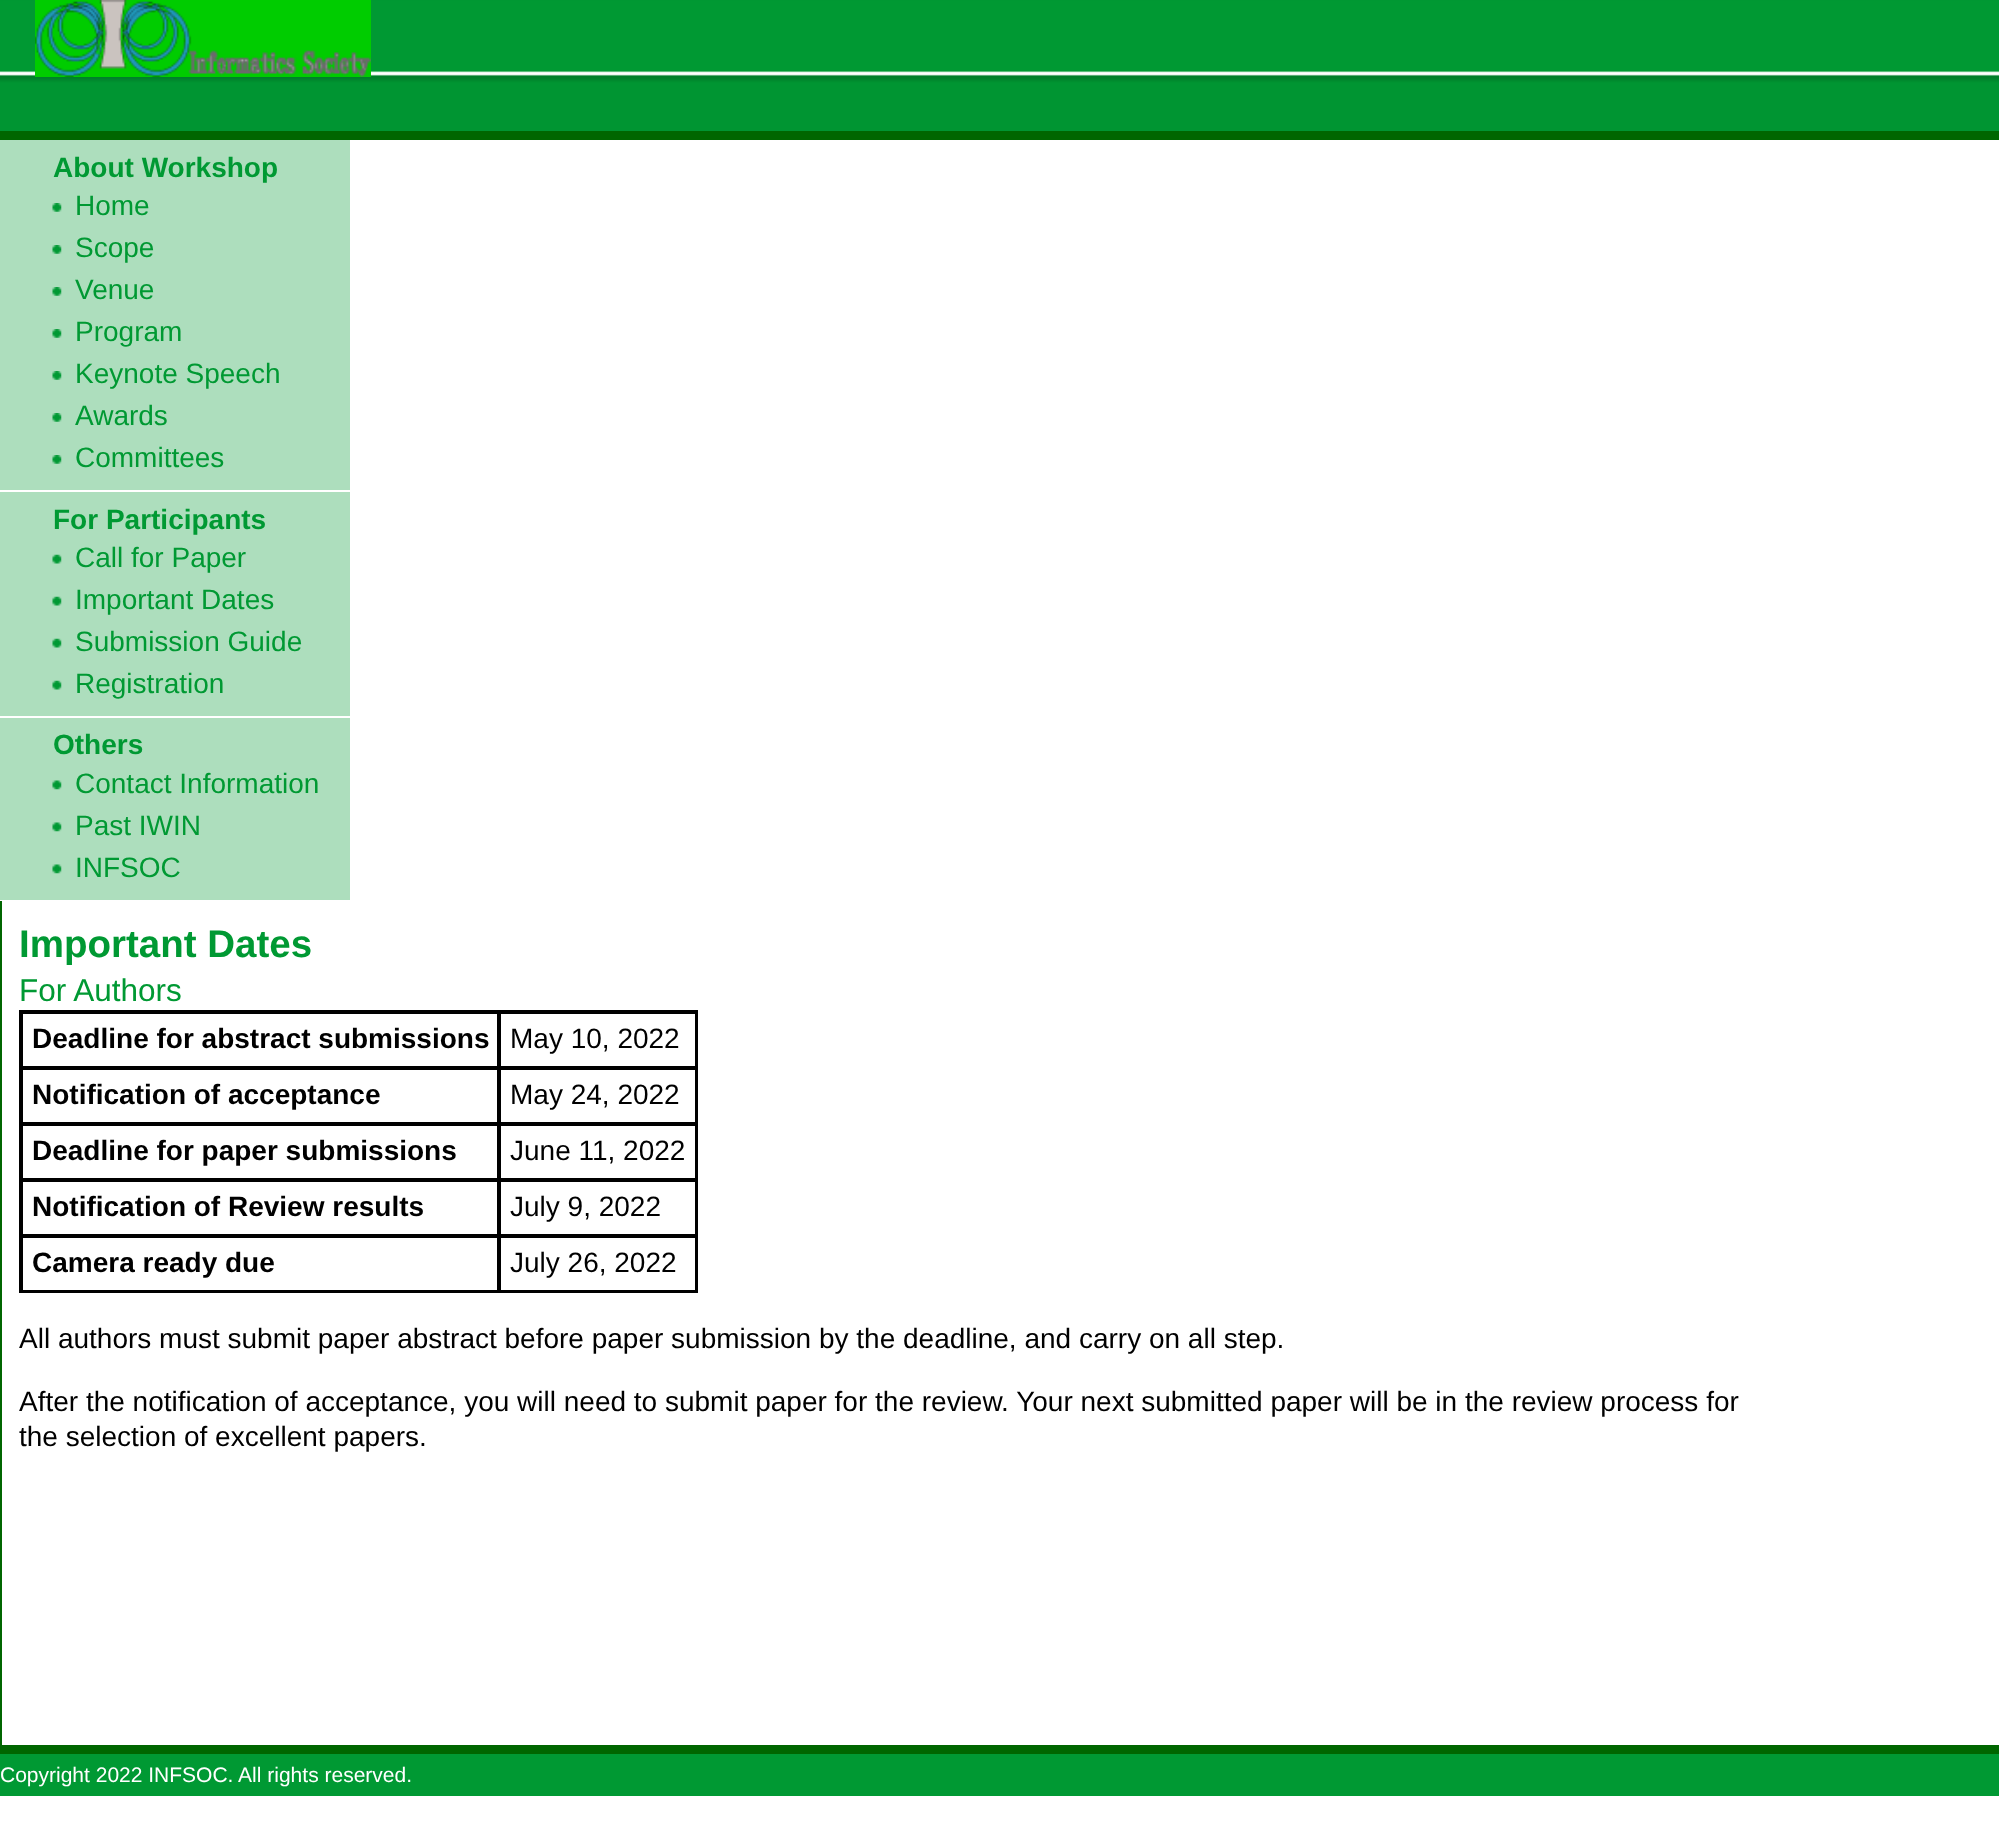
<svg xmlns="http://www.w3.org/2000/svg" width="1999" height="1837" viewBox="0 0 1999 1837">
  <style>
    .t1 { font: bold 28px Liberation Sans; fill: #093; }
    .t2 { font: 28px Liberation Sans; fill: #093; }
    .t3 { font: bold 38.5px Liberation Sans; fill: #093; }
    .t4 { font: 31.5px Liberation Sans; fill: #093; }
    .t5 { font: bold 28px Liberation Sans; fill: #000; }
    .t6 { font: 28px Liberation Sans; fill: #000; }
    .t7 { font: 21px Liberation Sans; fill: #fff; }
  </style>
  <rect width="100%" height="100%" fill="#fff"/>
  <image x="0" y="0" width="1999" height="131" href="images/1.png"/>
  <rect x="0" y="131" width="1999" height="9" fill="#060"/>
  <image x="35" y="0" width="336" height="77" href="images/2.png"/>
  <rect x="0" y="140" width="350" height="760" fill="#addebd"/>
  <rect x="0" y="490" width="350" height="2" fill="#fff"/>
  <text x="53" y="177" class="t1">About Workshop</text>
  <image x="52" y="203" width="10" height="9" href="images/3.png"/>
  <text x="75" y="215" class="t2">Home</text>
  <image x="52" y="245" width="10" height="9" href="images/3.png"/>
  <text x="75" y="257" class="t2">Scope</text>
  <image x="52" y="287" width="10" height="9" href="images/3.png"/>
  <text x="75" y="299" class="t2">Venue</text>
  <image x="52" y="329" width="10" height="9" href="images/3.png"/>
  <text x="75" y="341" class="t2">Program</text>
  <image x="52" y="371" width="10" height="9" href="images/3.png"/>
  <text x="75" y="383" class="t2">Keynote Speech</text>
  <image x="52" y="413" width="10" height="9" href="images/3.png"/>
  <text x="75" y="425" class="t2">Awards</text>
  <image x="52" y="455" width="10" height="9" href="images/3.png"/>
  <text x="75" y="467" class="t2">Committees</text>
  <rect x="0" y="716" width="350" height="2" fill="#fff"/>
  <text x="53" y="529" class="t1">For Participants</text>
  <image x="52" y="554" width="10" height="10" href="images/4.png"/>
  <text x="75" y="567" class="t2">Call for Paper</text>
  <image x="52" y="596" width="10" height="10" href="images/4.png"/>
  <text x="75" y="609" class="t2">Important Dates</text>
  <image x="52" y="638" width="10" height="10" href="images/4.png"/>
  <text x="75" y="651" class="t2">Submission Guide</text>
  <image x="52" y="680" width="10" height="10" href="images/4.png"/>
  <text x="75" y="693" class="t2">Registration</text>
  <text x="53" y="754" class="t1">Others</text>
  <image x="52" y="780" width="10" height="10" href="images/5.png"/>
  <text x="75" y="793" class="t2">Contact Information</text>
  <image x="52" y="822" width="10" height="10" href="images/5.png"/>
  <text x="75" y="835" class="t2">Past IWIN</text>
  <image x="52" y="864" width="10" height="10" href="images/5.png"/>
  <text x="75" y="877" class="t2">INFSOC</text>
  <rect x="0" y="901" width="2" height="844" fill="#060"/>
  <text x="19" y="957" class="t3">Important Dates</text>
  <text x="19" y="1001" class="t4">For Authors</text>
  <rect x="20" y="1011" width="677" height="281" fill="none" stroke="#000" stroke-width="2"/>
  <rect x="22" y="1013" width="476" height="54" fill="none" stroke="#000" stroke-width="2"/>
  <text x="32" y="1048" class="t5">Deadline for abstract submissions</text>
  <rect x="500" y="1013" width="196" height="54" fill="none" stroke="#000" stroke-width="2"/>
  <text x="510" y="1048" class="t6">May 10, 2022</text>
  <rect x="22" y="1069" width="476" height="54" fill="none" stroke="#000" stroke-width="2"/>
  <text x="32" y="1104" class="t5">Notification of acceptance</text>
  <rect x="500" y="1069" width="196" height="54" fill="none" stroke="#000" stroke-width="2"/>
  <text x="510" y="1104" class="t6">May 24, 2022</text>
  <rect x="22" y="1125" width="476" height="54" fill="none" stroke="#000" stroke-width="2"/>
  <text x="32" y="1160" class="t5">Deadline for paper submissions</text>
  <rect x="500" y="1125" width="196" height="54" fill="none" stroke="#000" stroke-width="2"/>
  <text x="510" y="1160" class="t6">June 11, 2022</text>
  <rect x="22" y="1181" width="476" height="54" fill="none" stroke="#000" stroke-width="2"/>
  <text x="32" y="1216" class="t5">Notification of Review results</text>
  <rect x="500" y="1181" width="196" height="54" fill="none" stroke="#000" stroke-width="2"/>
  <text x="510" y="1216" class="t6">July 9, 2022</text>
  <rect x="22" y="1237" width="476" height="54" fill="none" stroke="#000" stroke-width="2"/>
  <text x="32" y="1272" class="t5">Camera ready due</text>
  <rect x="500" y="1237" width="196" height="54" fill="none" stroke="#000" stroke-width="2"/>
  <text x="510" y="1272" class="t6">July 26, 2022</text>
  <text x="19" y="1348" class="t6">All authors must submit paper abstract before paper submission by the deadline, and carry on all step.</text>
  <text x="19" y="1411" class="t6">After the notification of acceptance, you will need to submit paper for the review. Your next submitted paper will be in the review process for</text>
  <text x="19" y="1446" class="t6">the selection of excellent papers.</text>
  <rect x="0" y="1754" width="1999" height="42" fill="#093"/>
  <rect x="0" y="1745" width="1999" height="9" fill="#060"/>
  <text x="0" y="1782" class="t7">Copyright 2022 INFSOC. All rights reserved.</text>
</svg>
